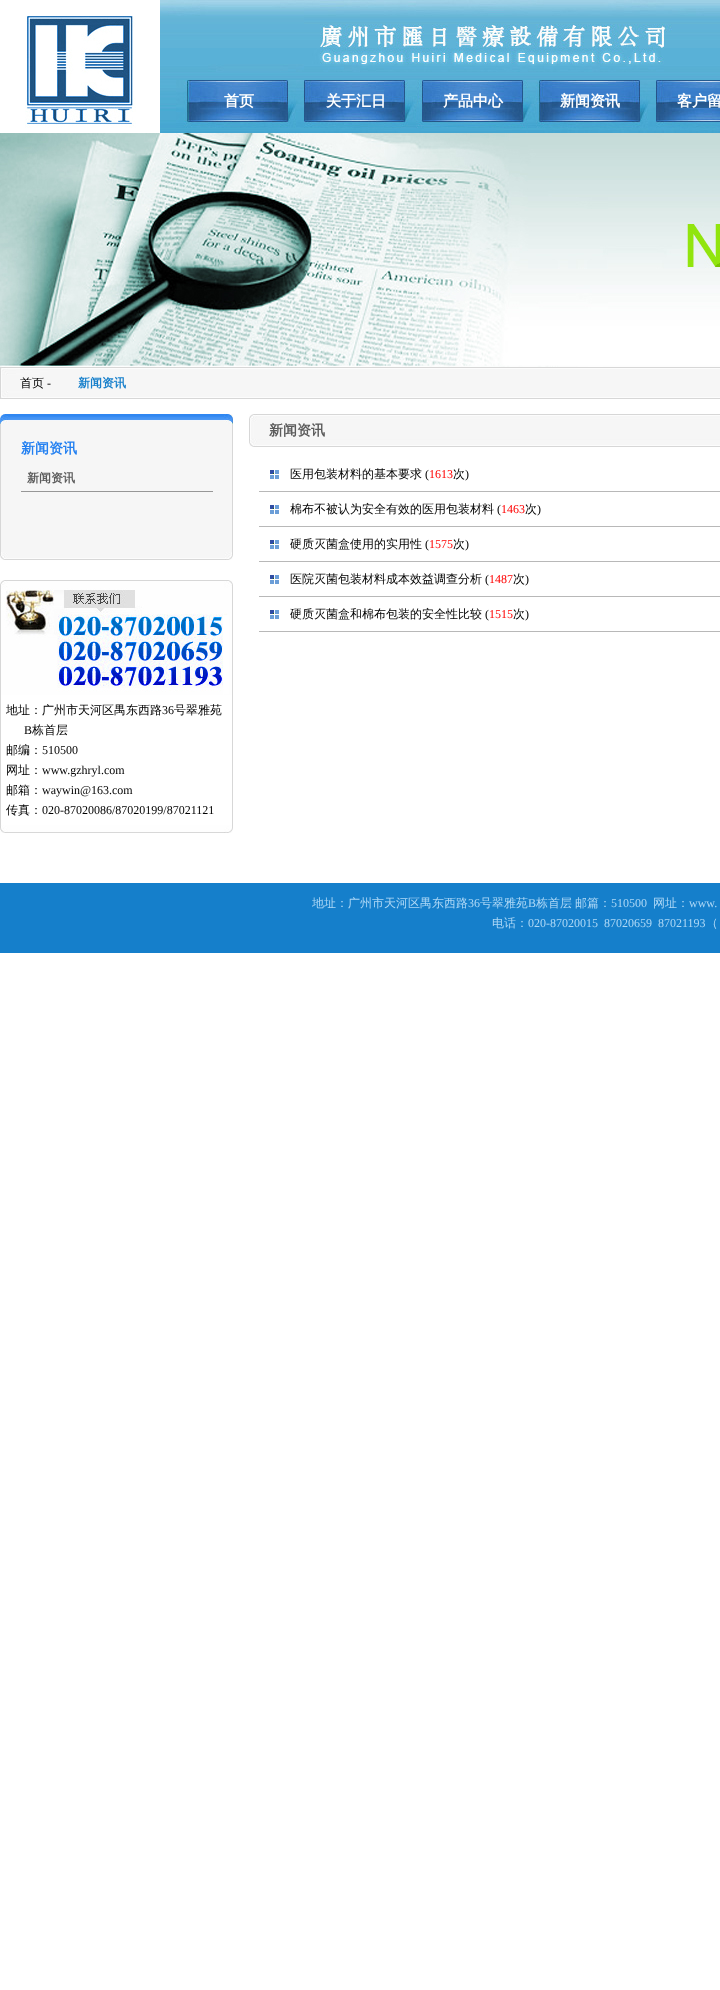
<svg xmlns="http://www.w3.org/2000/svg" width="720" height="1990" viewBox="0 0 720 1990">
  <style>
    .t1 { font: bold 15px WenQuanYi Zen Hei; fill: #fff; }
    .t2 { font: 500 12px WenQuanYi Zen Hei; fill: #000; }
    .t3 { font: 12px Liberation Serif; fill: #000; }
    .t4 { font: bold 12px WenQuanYi Zen Hei; fill: #167fcb; }
    .t5 { font: bold 14px WenQuanYi Zen Hei; fill: #2380f1; }
    .t6 { font: bold 12px WenQuanYi Zen Hei; fill: #5b5b5b; }
    .t7 { font: bold 14px WenQuanYi Zen Hei; fill: #5b5b5b; }
    .t8 { font: 12px Liberation Serif; fill: #f00; }
    .t9 { font: 500 12px WenQuanYi Zen Hei; fill: #aed8f6; }
    .t10 { font: 12px Liberation Serif; fill: #aed8f6; }
  </style>
  <rect width="100%" height="100%" fill="#fff"/>
  <image x="25" y="16" width="111" height="112" href="images/1.png"/>
  <image x="160" y="0" width="560" height="133" href="images/2.png"/>
  <text x="224" y="106" class="t1">首页</text>
  <text x="326" y="106" class="t1">关于汇日</text>
  <text x="443" y="106" class="t1">产品中心</text>
  <text x="560" y="106" class="t1">新闻资讯</text>
  <text x="677" y="106" class="t1">客户留</text>
  <image x="0" y="133" width="720" height="234" href="images/3.png"/>
  <image x="0" y="367" width="720" height="32" href="images/4.png"/>
  <text x="20" y="387" class="t2">首页</text>
  <text x="47" y="387" class="t3">-</text>
  <text x="78" y="387" class="t4">新闻资讯</text>
  <image x="0" y="414" width="233" height="10" href="images/5.png"/>
  <rect x="1" y="424" width="231" height="128" fill="#f6f6f6"/>
  <rect x="232" y="424" width="1" height="128" fill="#d7d7d7"/>
  <rect x="0" y="424" width="1" height="128" fill="#d7d7d7"/>
  <text x="21" y="453" class="t5">新闻资讯</text>
  <rect x="21" y="491" width="192" height="1" fill="#979797"/>
  <text x="27" y="482" class="t6">新闻资讯</text>
  <image x="0" y="552" width="233" height="8" href="images/6.png"/>
  <image x="0" y="580" width="233" height="115" href="images/7.png"/>
  <rect x="232" y="695" width="1" height="130" fill="#d7d7d7"/>
  <rect x="0" y="695" width="1" height="130" fill="#d7d7d7"/>
  <text x="6" y="714" class="t2">地址：广州市天河区禺东西路</text>
  <text x="162" y="714" class="t3">36</text>
  <text x="174" y="714" class="t2">号翠雅苑</text>
  <text x="24" y="734" class="t3">B</text>
  <text x="32" y="734" class="t2">栋首层</text>
  <text x="6" y="754" class="t2">邮编：</text>
  <text x="42" y="754" class="t3">510500</text>
  <text x="6" y="774" class="t2">网址：</text>
  <text x="42" y="774" class="t3">www.gzhryl.com</text>
  <text x="6" y="794" class="t2">邮箱：</text>
  <text x="42" y="794" class="t3">waywin@163.com</text>
  <text x="6" y="814" class="t2">传真：</text>
  <text x="42" y="814" class="t3">020-87020086/87020199/87021121</text>
  <image x="0" y="825" width="233" height="8" href="images/8.png"/>
  <image x="249" y="414" width="471" height="33" href="images/9.png"/>
  <text x="269" y="435" class="t7">新闻资讯</text>
  <rect x="259" y="491" width="461" height="1" fill="#b8b8b8"/>
  <image x="270" y="470" width="9" height="9" href="images/10.png"/>
  <text x="290" y="478" class="t2">医用包装材料的基本要求</text>
  <text x="425" y="478" class="t3">(</text>
  <text x="429" y="478" class="t8">1613</text>
  <text x="453" y="478" class="t2">次</text>
  <text x="465" y="478" class="t3">)</text>
  <rect x="259" y="526" width="461" height="1" fill="#b8b8b8"/>
  <image x="270" y="505" width="9" height="9" href="images/10.png"/>
  <text x="290" y="513" class="t2">棉布不被认为安全有效的医用包装材料</text>
  <text x="497" y="513" class="t3">(</text>
  <text x="501" y="513" class="t8">1463</text>
  <text x="525" y="513" class="t2">次</text>
  <text x="537" y="513" class="t3">)</text>
  <rect x="259" y="561" width="461" height="1" fill="#b8b8b8"/>
  <image x="270" y="540" width="9" height="9" href="images/10.png"/>
  <text x="290" y="548" class="t2">硬质灭菌盒使用的实用性</text>
  <text x="425" y="548" class="t3">(</text>
  <text x="429" y="548" class="t8">1575</text>
  <text x="453" y="548" class="t2">次</text>
  <text x="465" y="548" class="t3">)</text>
  <rect x="259" y="596" width="461" height="1" fill="#b8b8b8"/>
  <image x="270" y="575" width="9" height="9" href="images/10.png"/>
  <text x="290" y="583" class="t2">医院灭菌包装材料成本效益调查分析</text>
  <text x="485" y="583" class="t3">(</text>
  <text x="489" y="583" class="t8">1487</text>
  <text x="513" y="583" class="t2">次</text>
  <text x="525" y="583" class="t3">)</text>
  <rect x="259" y="631" width="461" height="1" fill="#b8b8b8"/>
  <image x="270" y="610" width="9" height="9" href="images/10.png"/>
  <text x="290" y="618" class="t2">硬质灭菌盒和棉布包装的安全性比较</text>
  <text x="485" y="618" class="t3">(</text>
  <text x="489" y="618" class="t8">1515</text>
  <text x="513" y="618" class="t2">次</text>
  <text x="525" y="618" class="t3">)</text>
  <rect x="0" y="883" width="720" height="70" fill="#157fcb"/>
  <text x="312" y="907" class="t9">地址：广州市天河区禺东西路</text>
  <text x="468" y="907" class="t10">36</text>
  <text x="480" y="907" class="t9">号翠雅苑</text>
  <text x="528" y="907" class="t10">B</text>
  <text x="536" y="907" class="t9">栋首层</text>
  <text x="575" y="907" class="t9">邮篇：</text>
  <text x="611" y="907" class="t10">510500</text>
  <text x="653" y="907" class="t9">网址：</text>
  <text x="689" y="907" class="t10">www.</text>
  <text x="492" y="927" class="t9">电话：</text>
  <text x="528" y="927" class="t10" xml:space="preserve">020-87020015  87020659  87021193</text>
  <text x="706" y="927" class="t9">（</text>
</svg>
